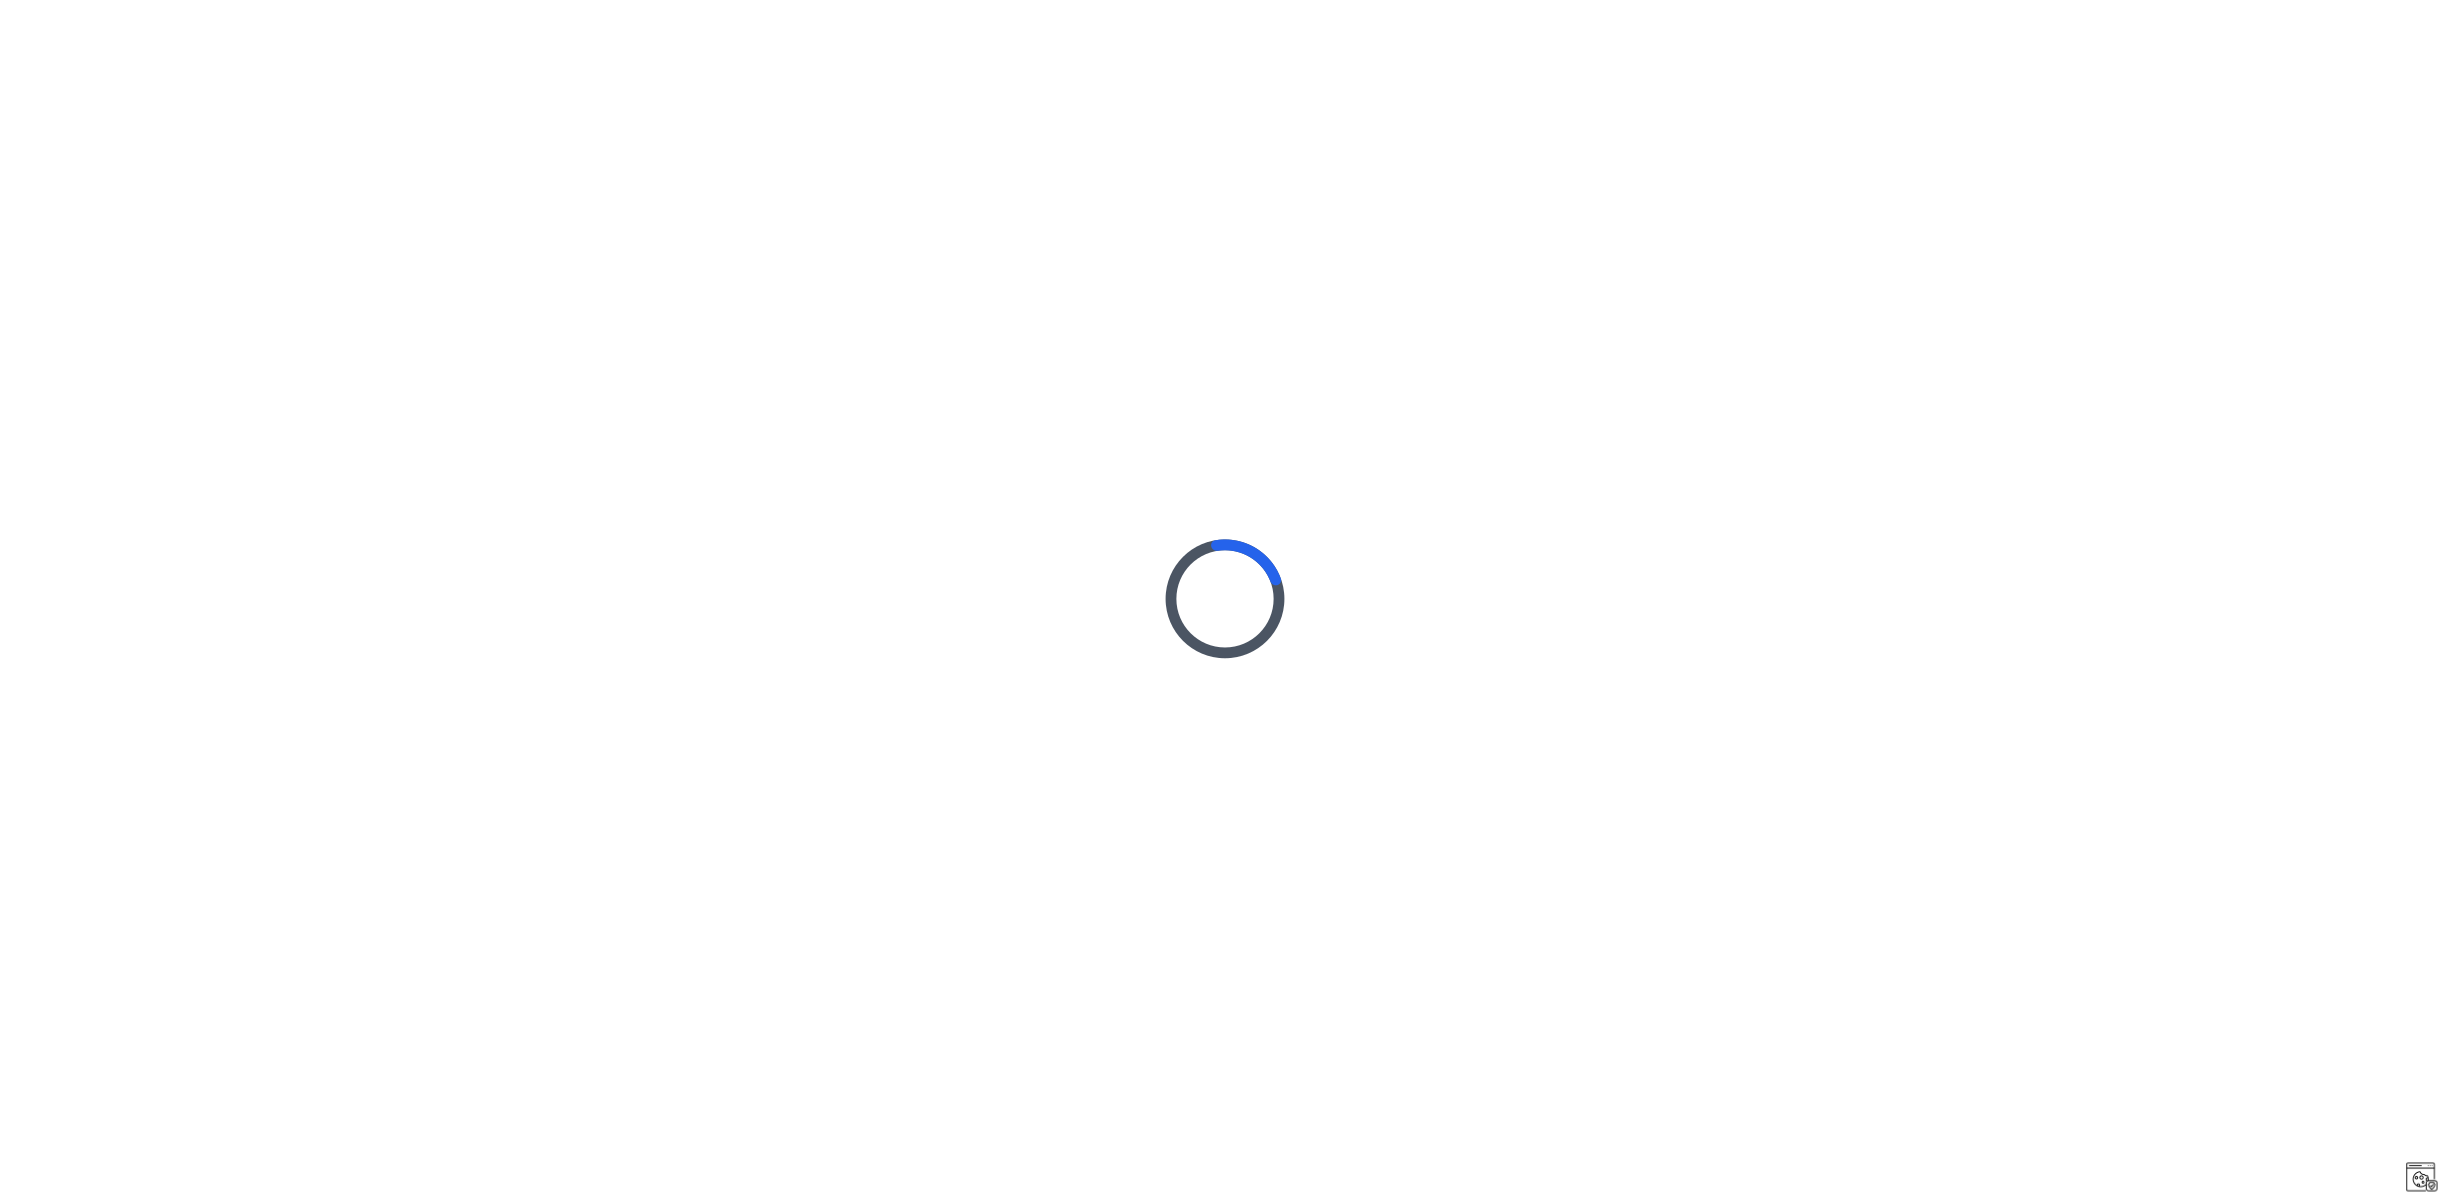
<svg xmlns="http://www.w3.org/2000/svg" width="2449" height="1197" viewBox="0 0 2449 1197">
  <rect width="100%" height="100%" fill="#fff"/>
  <image x="1165" y="539" width="120" height="120" href="images/1.png"/>
  <image x="2406" y="1162" width="32" height="30" href="images/2.png"/>
</svg>
